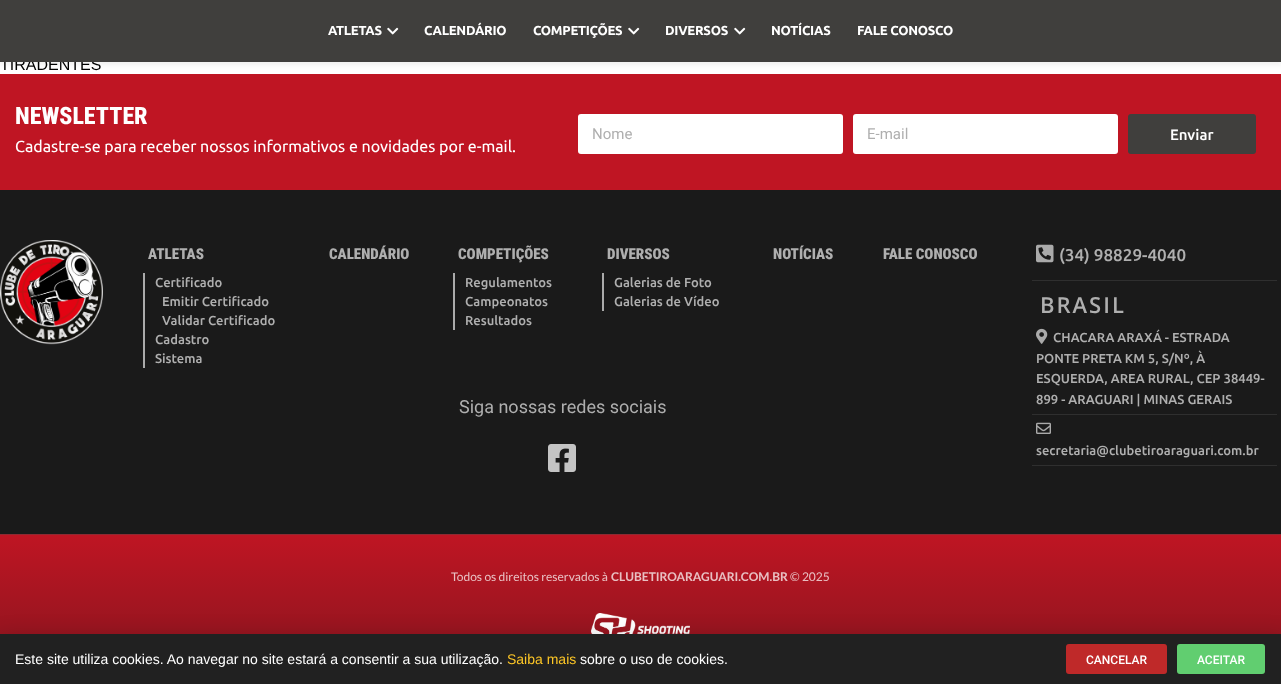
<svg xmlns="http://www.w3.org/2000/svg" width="1281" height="684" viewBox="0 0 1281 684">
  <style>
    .t1 { font: 16px Liberation Sans; fill: #000; }
    .t2 { font: bold 13px Ubuntu; letter-spacing: -0.25px; fill: #fff; }
    .t3 { font: 800 24px Roboto Condensed; fill: #fff; }
    .t4 { font: 16px Ubuntu; fill: #fff; }
    .t5 { font: 15px Roboto; fill: #afafaf; }
    .t6 { font: 500 15px Ubuntu; fill: #fff; }
    .t7 { font: 900 15px Roboto Condensed; fill: #afafaf; }
    .t8 { font: 500 13px Ubuntu; fill: #afafaf; }
    .t9 { font: 18px Roboto; fill: #afafaf; }
    .t10 { font: 500 17px Ubuntu; fill: #afafaf; }
    .t11 { font: 600 22px Open Sans; letter-spacing: 2px; fill: #afafaf; }
    .t12 { font: 12px Lato; fill: #e9c0c3; }
    .t13 { font: bold 12px Lato; fill: #e9c0c3; }
    .t14 { font: 14px Liberation Sans; fill: #fff; }
    .t15 { font: 14px Liberation Sans; fill: #fec726; }
    .t16 { font: 500 12px Roboto; fill: #fff; }
  </style>
  <defs>
    <linearGradient id="g1" gradientUnits="userSpaceOnUse" x1="641" y1="535" x2="641" y2="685"><stop offset="0" stop-color="#bf1523"/><stop offset="1" stop-color="#83151e"/></linearGradient>
  </defs>
  <rect width="100%" height="100%" fill="#fff"/>
  <rect x="-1" y="1" width="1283" height="64" fill="#0000000f" filter="blur(2.5px)"/>
  <text x="0" y="70" class="t1">TIRADENTES</text>
  <rect x="0" y="0" width="1281" height="62" fill="#403f3d"/>
  <text x="328" y="35" class="t2">ATLETAS</text>
  <image x="387" y="27" width="12" height="8" href="images/1.png"/>
  <text x="424" y="35" class="t2">CALENDÁRIO</text>
  <text x="533" y="35" class="t2">COMPETIÇÕES</text>
  <image x="628" y="27" width="12" height="8" href="images/1.png"/>
  <text x="665" y="35" class="t2">DIVERSOS</text>
  <image x="734" y="27" width="12" height="8" href="images/1.png"/>
  <text x="771" y="35" class="t2">NOTÍCIAS</text>
  <text x="857" y="35" class="t2">FALE CONOSCO</text>
  <rect x="0" y="74" width="1281" height="116" fill="#bf1523"/>
  <text x="15" y="124" class="t3">NEWSLETTER</text>
  <text x="15" y="152" class="t4">Cadastre-se para receber nossos informativos e novidades por e-mail.</text>
  <rect x="578" y="114" width="265" height="40" rx="3" fill="#fff"/>
  <text x="592" y="139" class="t5">Nome</text>
  <rect x="853" y="114" width="265" height="40" rx="3" fill="#fff"/>
  <text x="867" y="139" class="t5">E-mail</text>
  <rect x="1128" y="114" width="128" height="40" rx="3" fill="#403f3d"/>
  <text x="1170" y="140" class="t6">Enviar</text>
  <rect x="0" y="190" width="1281" height="344" fill="#1a1a1a"/>
  <image x="0" y="240" width="103" height="105" href="images/2.png"/>
  <text x="148" y="259" class="t7">ATLETAS</text>
  <rect x="143" y="273" width="2" height="95" fill="#aaa"/>
  <text x="155" y="287" class="t8">Certificado</text>
  <text x="162" y="306" class="t8">Emitir Certificado</text>
  <text x="162" y="325" class="t8">Validar Certificado</text>
  <text x="155" y="344" class="t8">Cadastro</text>
  <text x="155" y="363" class="t8">Sistema</text>
  <text x="329" y="259" class="t7">CALENDÁRIO</text>
  <text x="458" y="259" class="t7">COMPETIÇÕES</text>
  <rect x="453" y="273" width="2" height="57" fill="#aaa"/>
  <text x="465" y="287" class="t8">Regulamentos</text>
  <text x="465" y="306" class="t8">Campeonatos</text>
  <text x="465" y="325" class="t8">Resultados</text>
  <text x="607" y="259" class="t7">DIVERSOS</text>
  <rect x="602" y="273" width="2" height="38" fill="#aaa"/>
  <text x="614" y="287" class="t8">Galerias de Foto</text>
  <text x="614" y="306" class="t8">Galerias de Vídeo</text>
  <text x="773" y="259" class="t7">NOTÍCIAS</text>
  <text x="883" y="259" class="t7">FALE CONOSCO</text>
  <text x="459" y="413" class="t9">Siga nossas redes sociais</text>
  <image x="548" y="444" width="28" height="28" href="images/3.png"/>
  <rect x="1032" y="280" width="245" height="1" fill="#2f2f2f"/>
  <image x="1036" y="244" width="18" height="19" href="images/4.png"/>
  <text x="1059" y="261" class="t10">(34) 98829-4040</text>
  <text x="1040" y="313" class="t11">BRASIL</text>
  <rect x="1032" y="414" width="245" height="1" fill="#2f2f2f"/>
  <image x="1036" y="328" width="12" height="16" href="images/5.png"/>
  <text x="1053" y="342" class="t8">CHACARA ARAXÁ - ESTRADA</text>
  <text x="1036" y="363" class="t8">PONTE PRETA KM 5, S/Nº, À</text>
  <text x="1036" y="383" class="t8">ESQUERDA, AREA RURAL, CEP 38449-</text>
  <text x="1036" y="404" class="t8">899 - ARAGUARI | MINAS GERAIS</text>
  <rect x="1032" y="465" width="245" height="1" fill="#2f2f2f"/>
  <image x="1036" y="422" width="15" height="12" href="images/6.png"/>
  <text x="1036" y="455" class="t8">secretaria@clubetiroaraguari.com.br</text>
  <rect x="0" y="535" width="1281" height="99" fill="url(#g1)"/>
  <rect x="0" y="534" width="1281" height="1" fill="#8e2a32"/>
  <text x="451" y="581" class="t12">Todos os direitos reservados à</text>
  <text x="611" y="581" class="t13">CLUBETIROARAGUARI.COM.BR</text>
  <text x="790" y="581" class="t12">© 2025</text>
  <image x="591" y="613" width="99" height="21" href="images/7.png"/>
  <rect x="-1" y="639" width="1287" height="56" fill="#00000033" filter="blur(11.5px)"/>
  <rect x="0" y="634" width="1281" height="50" fill="#212121"/>
  <text x="15" y="664" class="t14">Este site utiliza cookies. Ao navegar no site estará a consentir a sua utilização.</text>
  <text x="507" y="664" class="t15">Saiba mais</text>
  <text x="580" y="664" class="t14">sobre o uso de cookies.</text>
  <rect x="1066" y="644" width="101" height="30" rx="3" fill="#bf2929"/>
  <text x="1086" y="664" class="t16">CANCELAR</text>
  <rect x="1177" y="644" width="88" height="30" rx="3" fill="#61ce70"/>
  <text x="1197" y="664" class="t16">ACEITAR</text>
</svg>
